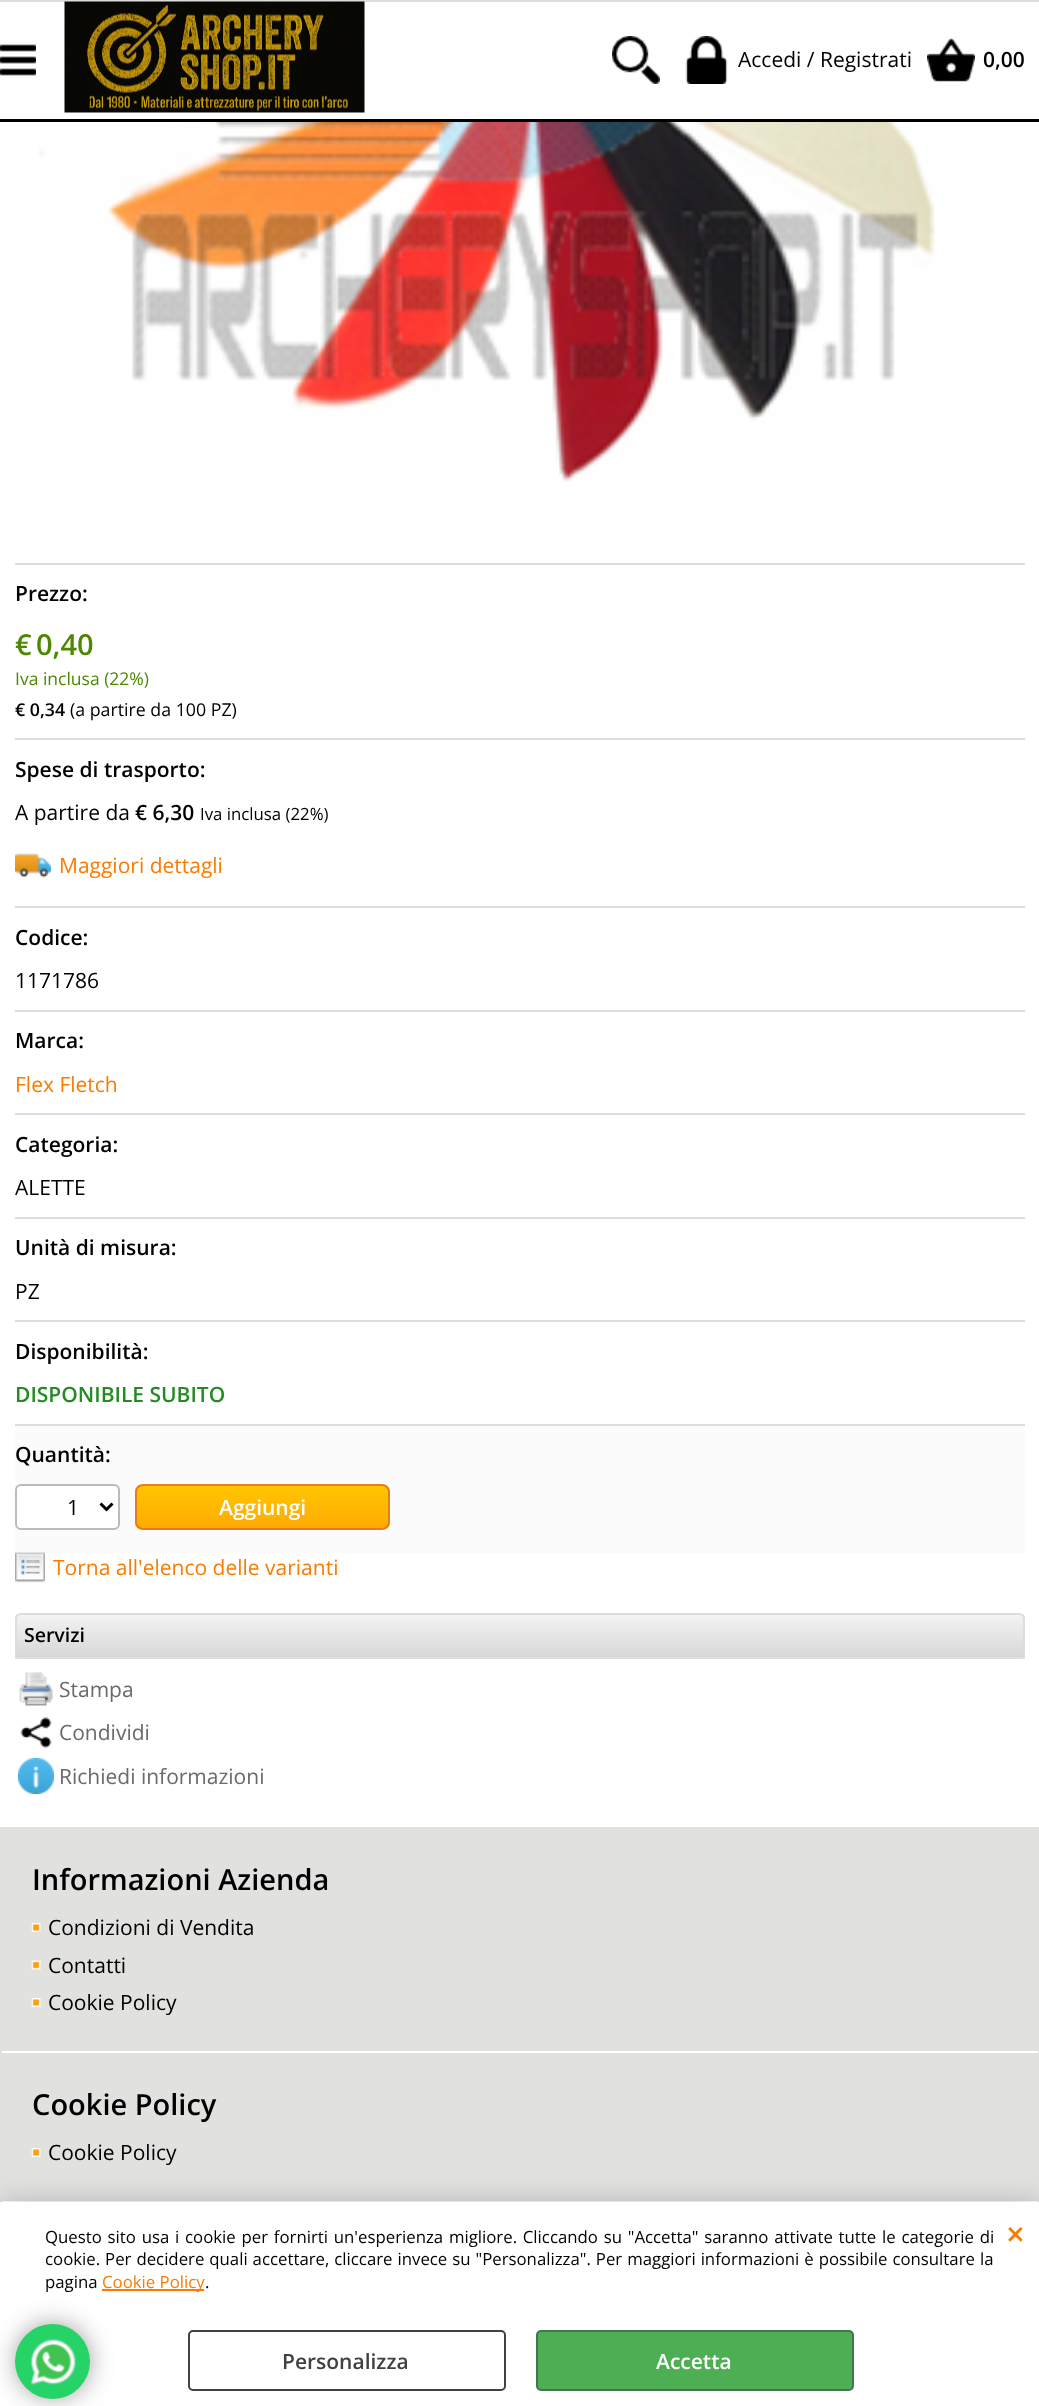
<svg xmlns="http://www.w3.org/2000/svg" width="1039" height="2406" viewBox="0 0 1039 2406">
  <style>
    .t1 { font: 21px Open Sans; fill: #000; }
    .t2 { font: 600 21px Open Sans; fill: #000; }
    .t3 { font: 600 29px Open Sans; fill: #4d8800; }
    .t4 { font: 17.5px Open Sans; fill: #4d8800; }
    .t5 { font: 600 17.75px Open Sans; fill: #000; }
    .t6 { font: 17.75px Open Sans; fill: #000; }
    .t7 { font: 16.8px Open Sans; fill: #000; }
    .t8 { font: 21px Open Sans; fill: #f97c00; }
    .t9 { font: 600 21px Open Sans; fill: #228b22; }
    .t10 { font: 600 21px Open Sans; fill: #fff; }
    .t11 { font: 600 19.5px Open Sans; fill: #000; }
    .t12 { font: 21px Open Sans; fill: #6b6969; }
    .t13 { font: 600 29px Open Sans; fill: #000; }
    .t14 { font: 16.8px Open Sans; fill: #f97c00; }
    .t15 { font: 600 33px Open Sans; fill: #f97c00; }
    .t16 { font: 600 21px Open Sans; fill: #424141; }
  </style>
  <defs>
    <clipPath id="clip1"><rect x="135" y="1484" width="255" height="46" rx="8"/></clipPath>
    <linearGradient id="g1" gradientUnits="userSpaceOnUse" x1="263" y1="1485" x2="263" y2="1529"><stop offset="0" stop-color="#ffc602"/><stop offset="1" stop-color="#ffaa02"/></linearGradient>
    <clipPath id="clip2"><path d="M21 1613H1019C1022.5 1613 1025 1615.5 1025 1619V1659H15V1619C15 1615.5 17.5 1613 21 1613Z"/></clipPath>
    <linearGradient id="g2" gradientUnits="userSpaceOnUse" x1="520" y1="1614" x2="520" y2="1658"><stop offset="0" stop-color="#f3f3f3"/><stop offset="1" stop-color="#d7d7d7"/></linearGradient>
  </defs>
  <rect width="100%" height="100%" fill="#fff"/>
  <rect x="0" y="0" width="1039" height="2" fill="#ddd"/>
  <rect x="0" y="119" width="1039" height="3" fill="#000"/>
  <image x="0" y="44" width="36" height="32" href="images/1.png"/>
  <image x="64" y="1" width="301" height="112" href="images/2.png"/>
  <image x="612" y="36" width="48" height="48" href="images/3.png"/>
  <image x="685" y="36" width="43" height="48" href="images/4.png"/>
  <text x="738" y="67" class="t1">Accedi / Registrati</text>
  <image x="927" y="38" width="48" height="44" href="images/5.png"/>
  <text x="983" y="67" class="t2">0,00</text>
  <image x="38" y="122" width="934" height="360" href="images/6.png"/>
  <rect x="15" y="563" width="1010" height="2" fill="#ddd"/>
  <text x="15" y="601" class="t2">Prezzo:</text>
  <text x="15" y="655" class="t3">€</text>
  <text x="36" y="655" class="t3">0,40</text>
  <text x="15" y="685" class="t4">Iva inclusa (22%)</text>
  <text x="15" y="716" class="t5">€ 0,34</text>
  <text x="70" y="716" class="t6">(a partire da 100 PZ)</text>
  <rect x="15" y="738" width="1010" height="2" fill="#ddd"/>
  <text x="15" y="777" class="t2">Spese di trasporto:</text>
  <text x="15" y="820" class="t1">A partire da</text>
  <text x="135" y="820" class="t2">€ 6,30</text>
  <text x="200" y="820" class="t7">Iva inclusa (22%)</text>
  <image x="15" y="853" width="36" height="25" href="images/7.png"/>
  <text x="59" y="873" class="t8">Maggiori dettagli</text>
  <rect x="15" y="906" width="1010" height="2" fill="#ddd"/>
  <text x="15" y="945" class="t2">Codice:</text>
  <text x="15" y="988" class="t1">1171786</text>
  <rect x="15" y="1010" width="1010" height="2" fill="#ddd"/>
  <text x="15" y="1048" class="t2">Marca:</text>
  <text x="15" y="1092" class="t8">Flex Fletch</text>
  <rect x="15" y="1113" width="1010" height="2" fill="#ddd"/>
  <text x="15" y="1152" class="t2">Categoria:</text>
  <text x="15" y="1195" class="t1">ALETTE</text>
  <rect x="15" y="1217" width="1010" height="2" fill="#ddd"/>
  <text x="15" y="1255" class="t2">Unità di misura:</text>
  <text x="15" y="1299" class="t1">PZ</text>
  <rect x="15" y="1320" width="1010" height="2" fill="#ddd"/>
  <text x="15" y="1359" class="t2">Disponibilità:</text>
  <text x="15" y="1402" class="t9">DISPONIBILE SUBITO</text>
  <rect x="15" y="1426" width="1010" height="127" fill="#fbfbfb"/>
  <rect x="15" y="1424" width="1010" height="2" fill="#ddd"/>
  <text x="15" y="1462" class="t2">Quantità:</text>
  <rect x="16" y="1485" width="103" height="44" rx="5" fill="#fff" stroke="#bbb" stroke-width="2"/>
  <path d="M100.5 1503.5L106.5 1509.5L112.5 1503.5" fill="none" stroke="#000" stroke-width="3"/>
  <text x="67" y="1515" class="t1">1</text>
  <g clip-path="url(#clip1)">
    <rect x="135" y="1485" width="255" height="44" fill="url(#g1)"/>
  </g>
  <rect x="136" y="1485" width="253" height="44" rx="7" fill="none" stroke="#eb7c19" stroke-width="2"/>
  <text x="219" y="1515" class="t10">Aggiungi</text>
  <image x="15" y="1552" width="30" height="31" href="images/8.png"/>
  <text x="53" y="1575" class="t8">Torna all'elenco delle varianti</text>
  <g clip-path="url(#clip2)">
    <rect x="15" y="1614" width="1010" height="43" fill="url(#g2)"/>
  </g>
  <path d="M21 1614H1019C1022 1614 1024 1616 1024 1619V1658H16V1619C16 1616 18 1614 21 1614Z" fill="none" stroke="#ddd" stroke-width="2"/>
  <text x="24" y="1642" class="t11">Servizi</text>
  <image x="19" y="1672" width="34" height="34" href="images/9.png"/>
  <text x="59" y="1697" class="t12">Stampa</text>
  <image x="20" y="1717" width="32" height="31" href="images/10.png"/>
  <text x="59" y="1740" class="t12">Condividi</text>
  <image x="18" y="1758" width="36" height="36" href="images/11.png"/>
  <text x="59" y="1784" class="t12">Richiedi informazioni</text>
  <rect x="0" y="1827" width="1039" height="375" fill="#e1e1e0"/>
  <rect x="2" y="2051" width="1036" height="2" fill="#fff"/>
  <text x="32" y="1890" class="t13">Informazioni Azienda</text>
  <image x="31" y="1923" width="10" height="9" href="images/12.png"/>
  <text x="48" y="1935" class="t1">Condizioni di Vendita</text>
  <image x="31" y="1960" width="10" height="10" href="images/13.png"/>
  <text x="48" y="1973" class="t1">Contatti</text>
  <image x="31" y="1998" width="10" height="9" href="images/12.png"/>
  <text x="48" y="2010" class="t1">Cookie Policy</text>
  <rect x="2" y="2201" width="1036" height="1" fill="#fff"/>
  <text x="32" y="2115" class="t13">Cookie Policy</text>
  <image x="31" y="2148" width="10" height="9" href="images/12.png"/>
  <text x="48" y="2160" class="t1">Cookie Policy</text>
  <rect x="0" y="2202" width="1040" height="204" fill="#00000033" filter="blur(13.5px)"/>
  <rect x="0" y="2202" width="1039" height="204" fill="#fff"/>
  <text x="45" y="2243" word-spacing="1.4" class="t7">Questo sito usa i cookie per fornirti un'esperienza migliore. Cliccando su "Accetta" saranno attivate tutte le categorie di</text>
  <text x="45" y="2265" word-spacing="0.6" class="t7">cookie. Per decidere quali accettare, cliccare invece su "Personalizza". Per maggiori informazioni è possibile consultare la</text>
  <text x="45" y="2288" class="t7">pagina</text>
  <rect x="102" y="2289" width="102" height="2" fill="#f97c00"/>
  <text x="102" y="2288" class="t14">Cookie Policy</text>
  <text x="205" y="2288" class="t7">.</text>
  <text x="1006" y="2246" class="t15">×</text>
  <rect x="189" y="2331" width="316" height="59" rx="4" fill="none" stroke="#424141" stroke-width="2"/>
  <text x="282" y="2369" class="t16">Personalizza</text>
  <rect x="537" y="2331" width="316" height="59" rx="4" fill="#4eae54" stroke="#3f7755" stroke-width="2"/>
  <text x="656" y="2369" class="t10">Accetta</text>
  <rect x="23" y="2331" width="60" height="60" rx="30" fill="#000000b3" filter="blur(15px)"/>
  <circle cx="52.5" cy="2361.5" r="37.5" fill="#25d366"/>
  <image x="30" y="2339" width="46" height="47" href="images/14.png"/>
</svg>
